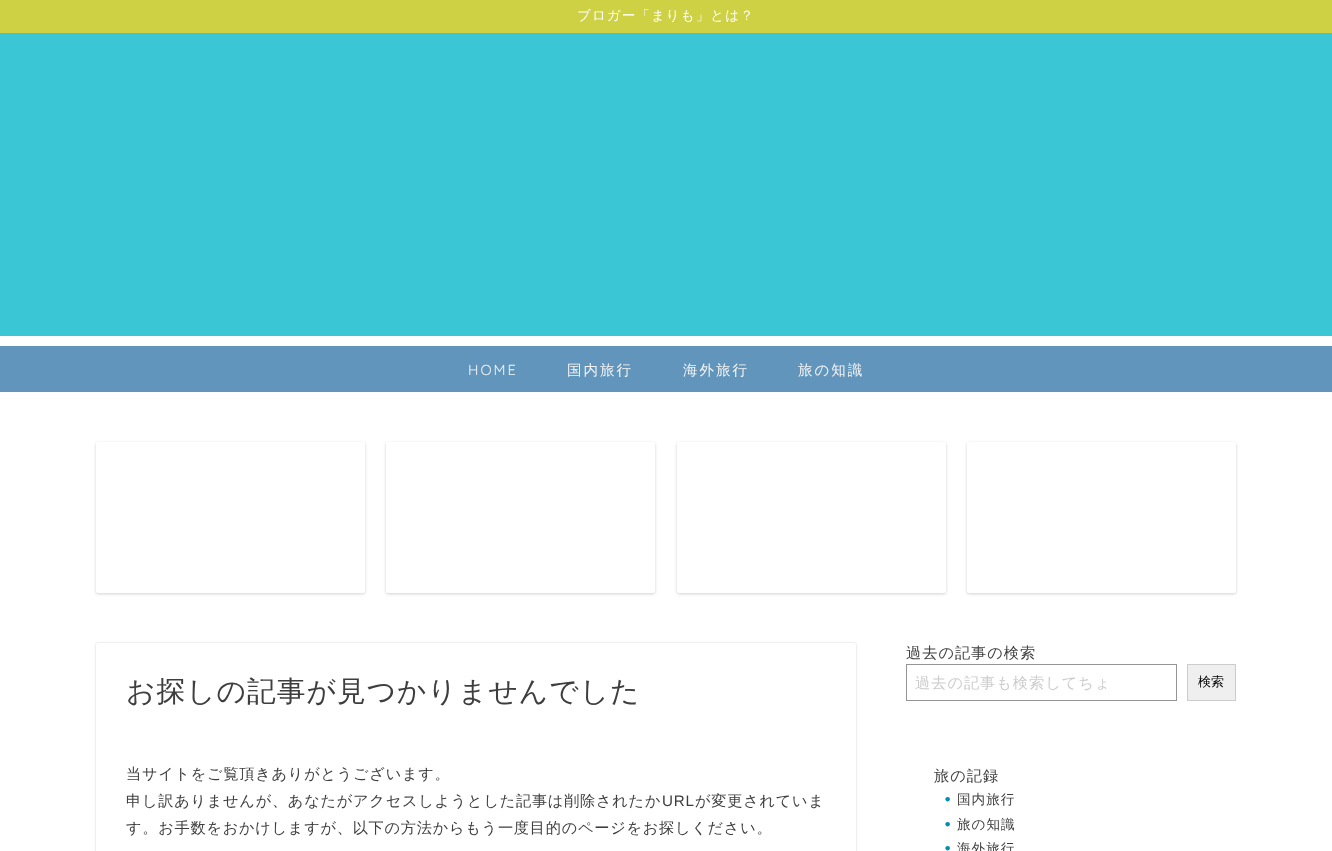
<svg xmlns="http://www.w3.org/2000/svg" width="1332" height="851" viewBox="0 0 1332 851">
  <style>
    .t1 { font: 500 13.6px WenQuanYi Zen Hei; letter-spacing: 1px; fill: #fff; }
    .t2 { font: 300 14.5px Quicksand; letter-spacing: 2px; fill: #f4f4f4; }
    .t3 { font: 500 14.5px WenQuanYi Zen Hei; letter-spacing: 2px; fill: #f4f4f4; }
    .t4 { font: 500 28.75px WenQuanYi Zen Hei; letter-spacing: 1px; fill: #3e3e3e; }
    .t5 { font: 500 15.2px WenQuanYi Zen Hei; letter-spacing: 0.75px; fill: #3e3e3e; }
    .t6 { font: 15.2px Liberation Sans; letter-spacing: 0.75px; fill: #3e3e3e; }
    .t7 { font: 500 15.2px WenQuanYi Zen Hei; letter-spacing: 1px; fill: #3e3e3e; }
    .t8 { font: 500 15.2px WenQuanYi Zen Hei; letter-spacing: 1px; fill: #ccc; }
    .t9 { font: 500 13px WenQuanYi Zen Hei; fill: #000; }
    .t10 { font: bold 24px WenQuanYi Zen Hei; letter-spacing: 1px; fill: #0090ad; }
    .t11 { font: 500 13.6px WenQuanYi Zen Hei; letter-spacing: 1px; fill: #3e3e3e; }
  </style>
  <rect width="100%" height="100%" fill="#fff"/>
  <rect x="0" y="0" width="1332" height="33" fill="#ced143"/>
  <text x="577" y="20" class="t1">ブロガー「まりも」とは？</text>
  <rect x="0" y="33" width="1332" height="303" fill="#3bc6d6"/>
  <rect x="0" y="346" width="1332" height="46" fill="#6295bc"/>
  <text x="468" y="375" class="t2">HOME</text>
  <text x="567" y="375" class="t3">国内旅行</text>
  <text x="683" y="375" class="t3">海外旅行</text>
  <text x="798" y="375" class="t3">旅の知識</text>
  <rect x="96" y="443" width="269" height="151" rx="2" fill="#0000002e" filter="blur(1.5px)"/>
  <rect x="96" y="442" width="269" height="151" rx="2" fill="#fff"/>
  <rect x="386" y="443" width="269" height="151" rx="2" fill="#0000002e" filter="blur(1.5px)"/>
  <rect x="386" y="442" width="269" height="151" rx="2" fill="#fff"/>
  <rect x="677" y="443" width="269" height="151" rx="2" fill="#0000002e" filter="blur(1.5px)"/>
  <rect x="677" y="442" width="269" height="151" rx="2" fill="#fff"/>
  <rect x="967" y="443" width="269" height="151" rx="2" fill="#0000002e" filter="blur(1.5px)"/>
  <rect x="967" y="442" width="269" height="151" rx="2" fill="#fff"/>
  <rect x="96" y="643" width="760" height="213" rx="2" fill="#0000002e" filter="blur(1px)"/>
  <rect x="96" y="643" width="760" height="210" rx="2" fill="#fff"/>
  <text x="126" y="701" class="t4">お探しの記事が見つかりませんでした</text>
  <text x="126" y="779" class="t5">当サイトをご覧頂きありがとうございます。</text>
  <text x="126" y="806" class="t5">申し訳ありませんが、あなたがアクセスしようとした記事は削除されたか</text>
  <text x="662" y="806" class="t6">URL</text>
  <text x="695" y="806" class="t5">が変更されていま</text>
  <text x="126" y="833" class="t5">す。お手数をおかけしますが、以下の方法からもう一度目的のページをお探しください。</text>
  <text x="906" y="658" class="t7">過去の記事の検索</text>
  <rect x="906.5" y="664.5" width="270" height="36" fill="none" stroke="#949494"/>
  <text x="915" y="688" class="t8">過去の記事も検索してちょ</text>
  <rect x="1187.5" y="664.5" width="48" height="36" fill="#efefef" stroke="#ccc"/>
  <text x="1198" y="686" class="t9">検索</text>
  <text x="934" y="781" class="t7">旅の記録</text>
  <text x="935" y="808" class="t10">・</text>
  <text x="957" y="804" class="t11">国内旅行</text>
  <text x="935" y="833" class="t10">・</text>
  <text x="957" y="829" class="t11">旅の知識</text>
  <text x="935" y="857" class="t10">・</text>
  <text x="957" y="853" class="t11">海外旅行</text>
</svg>
